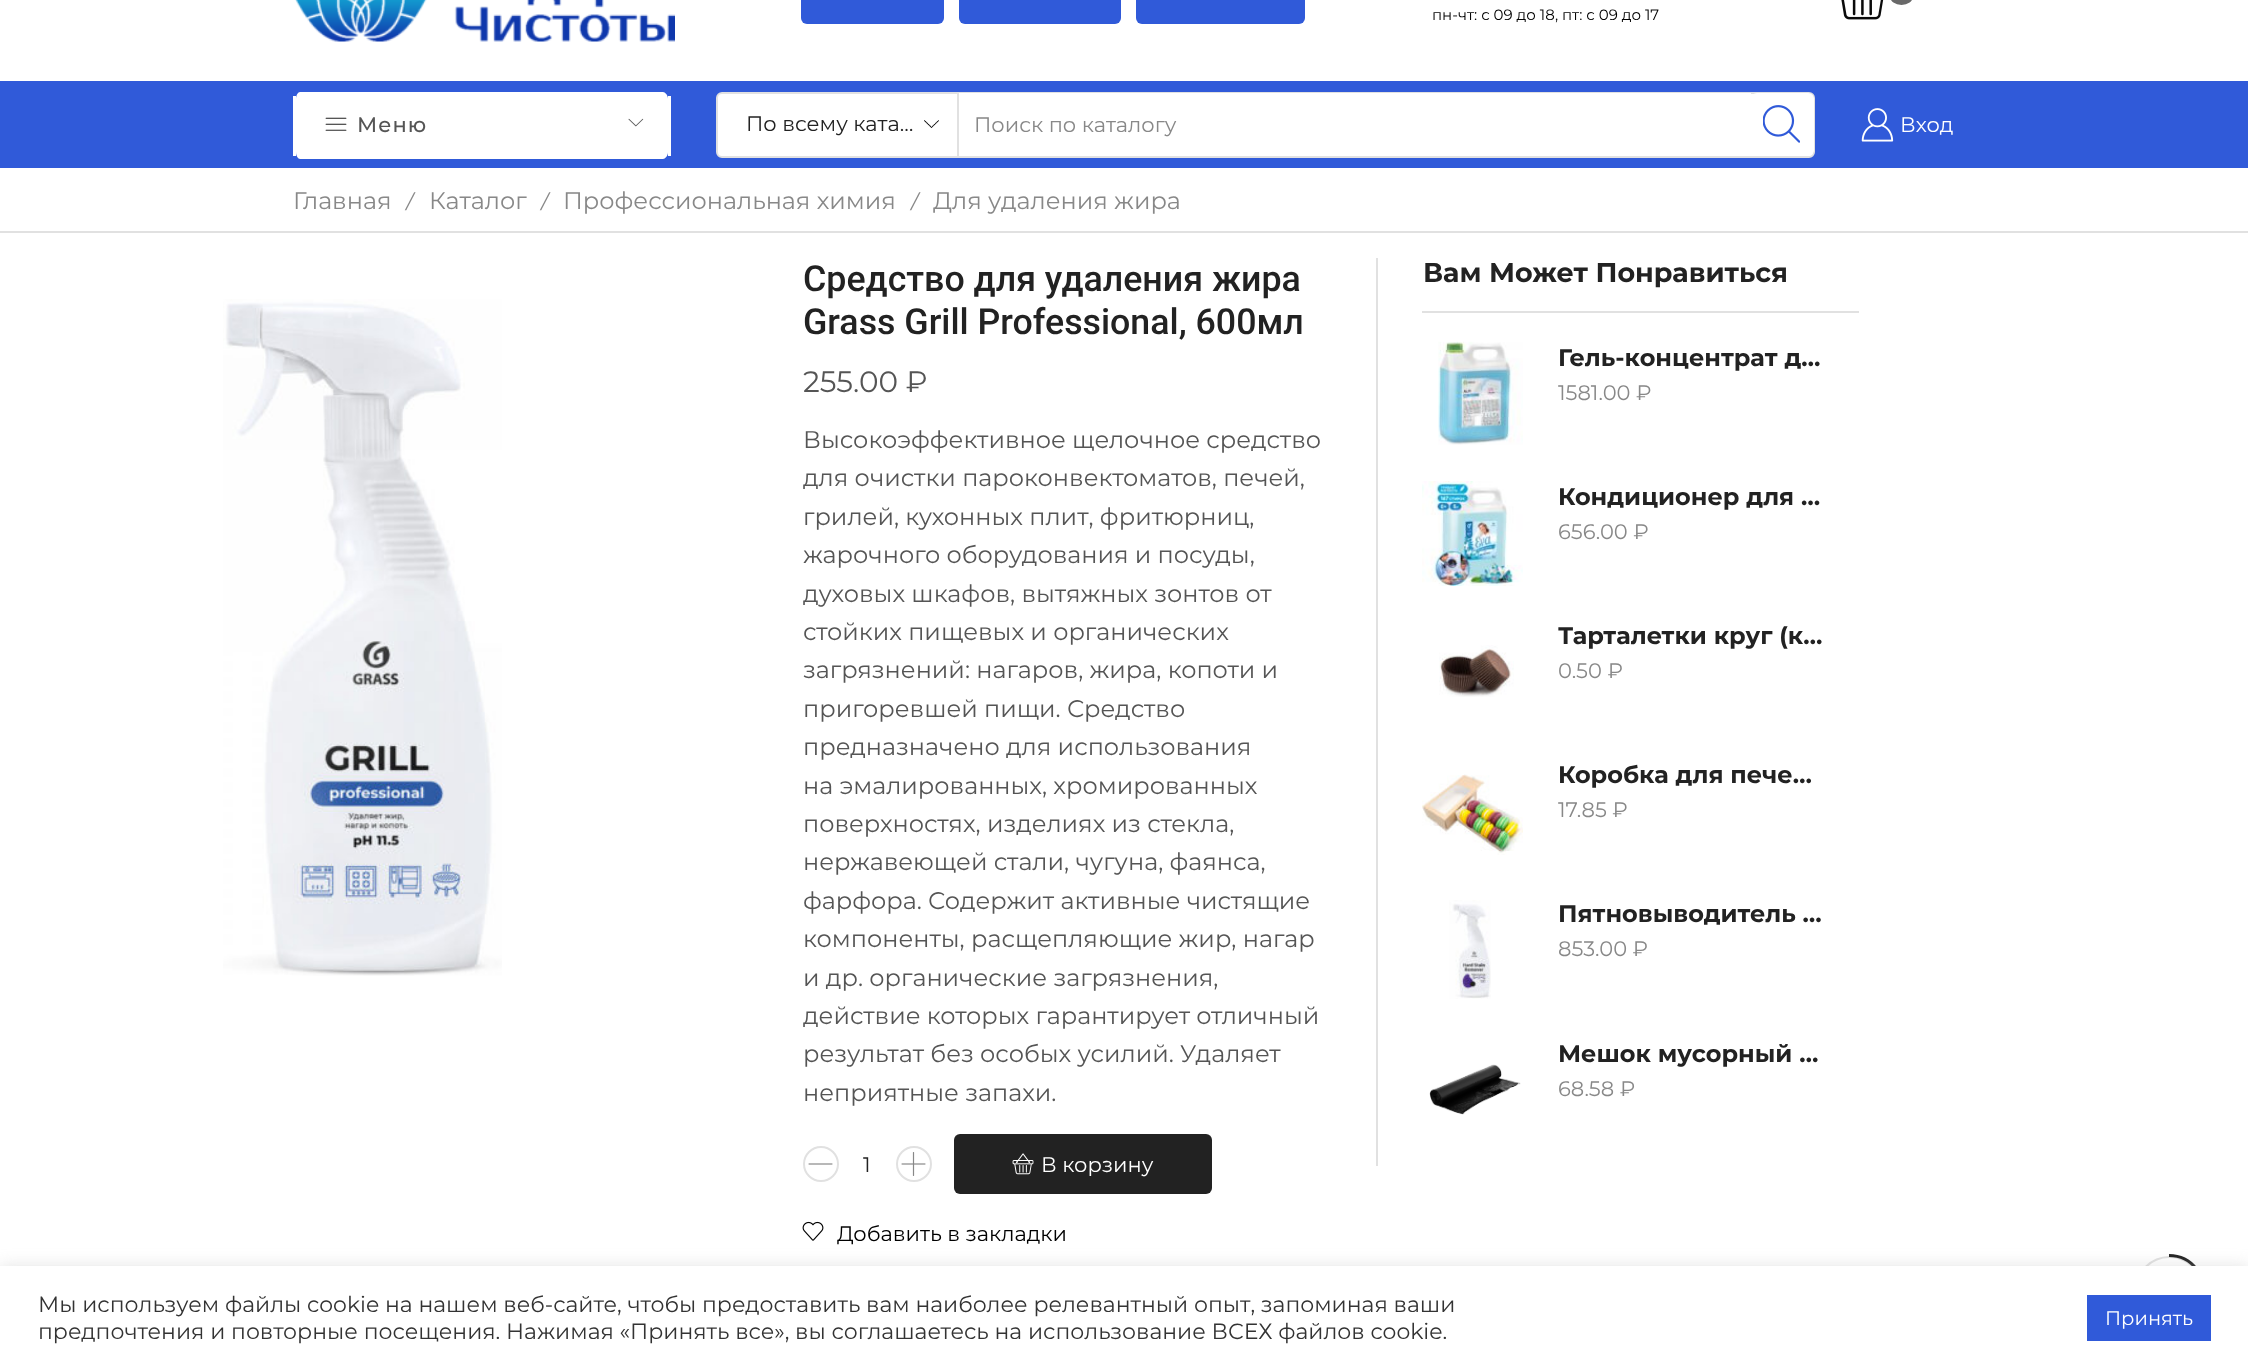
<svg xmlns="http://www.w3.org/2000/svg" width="2248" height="1369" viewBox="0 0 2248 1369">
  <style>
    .t1 { font: 15px Montserrat; fill: #000; }
    .t2 { font: 500 21px Montserrat; letter-spacing: 1px; fill: #555; }
    .t3 { font: 21px Montserrat; fill: #222; }
    .t4 { font: 21px Montserrat; fill: #888; }
    .t5 { font: 21px Montserrat; fill: #fff; }
    .t6 { font: 24px Montserrat; fill: #888; }
    .t7 { font: italic 27px Liberation Serif; fill: #888; }
    .t8 { font: 500 35.75px Roboto; fill: #222; }
    .t9 { font: 29.5px Montserrat; fill: #555; }
    .t10 { font: 24px Montserrat; fill: #555; }
    .t11 { font: 21px Montserrat; fill: #000; }
    .t12 { font: bold 27px Montserrat; fill: #222; }
    .t13 { font: bold 24px Montserrat; fill: #222; }
    .t14 { font: 22px Montserrat; fill: #333; }
    .t15 { font: 19.5px Montserrat; fill: #fff; }
  </style>
  <rect width="100%" height="100%" fill="#fff"/>
  <image x="295" y="0" width="380" height="42" href="images/1.png"/>
  <rect x="801" y="-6" width="143" height="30" rx="6" fill="#305ad9"/>
  <rect x="959" y="-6" width="162" height="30" rx="6" fill="#305ad9"/>
  <rect x="1136" y="-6" width="169" height="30" rx="6" fill="#305ad9"/>
  <text x="1432" y="20" class="t1">пн-чт: с 09 до 18, пт: с 09 до 17</text>
  <rect x="1890" y="-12" width="23" height="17" rx="11.5" fill="#696969"/>
  <image x="1841" y="0" width="43" height="20" href="images/2.png"/>
  <rect x="0" y="81" width="2248" height="87" fill="#305ad9"/>
  <path d="M300 92H663C665 92 668 95 668 99V152C668 156 665 159 663 159H300C298 159 296 156 296 152V99C296 95 298 92 300 92Z" fill="#fff"/>
  <rect x="668" y="96" width="3" height="60" fill="#fff"/>
  <rect x="293" y="96" width="3" height="60" fill="#fff"/>
  <image x="325" y="117" width="22" height="14" href="images/3.png"/>
  <text x="357" y="132" class="t2">Меню</text>
  <image x="628" y="118" width="16" height="9" href="images/4.png"/>
  <rect x="717" y="93" width="1097" height="64" rx="5" fill="#fff" stroke="#e1e1e1" stroke-width="2"/>
  <image x="924" y="120" width="15" height="8" href="images/5.png"/>
  <rect x="957" y="93" width="2" height="63" fill="#e1e1e1"/>
  <text x="746" y="131" class="t3">По всему ката…</text>
  <rect x="959" y="93" width="792" height="1" fill="#fff"/>
  <text x="974" y="132" class="t4">Поиск по каталогу</text>
  <rect x="1751" y="93" width="63" height="63" rx="6" fill="#fff"/>
  <image x="1763" y="105" width="37" height="38" href="images/6.png"/>
  <image x="1861" y="108" width="33" height="34" href="images/7.png"/>
  <text x="1900" y="132" class="t5">Вход</text>
  <rect x="0" y="231" width="2248" height="2" fill="#e1e1e1"/>
  <text x="293" y="209" class="t6">Главная</text>
  <text x="406" y="210" class="t7">/</text>
  <text x="429" y="209" class="t6">Каталог</text>
  <text x="541" y="210" class="t7">/</text>
  <text x="563" y="209" class="t6">Профессиональная химия</text>
  <text x="911" y="210" class="t7">/</text>
  <text x="933" y="209" class="t6">Для удаления жира</text>
  <image x="223" y="299" width="279" height="677" href="images/8.png"/>
  <text x="803" y="291" class="t8">Средство для удаления жира</text>
  <text x="803" y="334" class="t8">Grass Grill Professional, 600мл</text>
  <text x="803" y="392" class="t9">255.00 ₽</text>
  <text x="803" y="448" class="t10">Высокоэффективное щелочное средство</text>
  <text x="803" y="486" class="t10">для очистки пароконвектоматов, печей,</text>
  <text x="803" y="525" class="t10">грилей, кухонных плит, фритюрниц,</text>
  <text x="803" y="563" class="t10">жарочного оборудования и посуды,</text>
  <text x="803" y="602" class="t10">духовых шкафов, вытяжных зонтов от</text>
  <text x="803" y="640" class="t10">стойких пищевых и органических</text>
  <text x="803" y="678" class="t10">загрязнений: нагаров, жира, копоти и</text>
  <text x="803" y="717" class="t10">пригоревшей пищи. Средство</text>
  <text x="803" y="755" class="t10">предназначено для использования</text>
  <text x="803" y="794" class="t10">на эмалированных, хромированных</text>
  <text x="803" y="832" class="t10">поверхностях, изделиях из стекла,</text>
  <text x="803" y="870" class="t10">нержавеющей стали, чугуна, фаянса,</text>
  <text x="803" y="909" class="t10">фарфора. Содержит активные чистящие</text>
  <text x="803" y="947" class="t10">компоненты, расщепляющие жир, нагар</text>
  <text x="803" y="986" class="t10">и др. органические загрязнения,</text>
  <text x="803" y="1024" class="t10">действие которых гарантирует отличный</text>
  <text x="803" y="1062" class="t10">результат без особых усилий. Удаляет</text>
  <text x="803" y="1101" class="t10">неприятные запахи.</text>
  <circle cx="821" cy="1164" r="17" fill="none" stroke="#e1e1e1" stroke-width="2"/>
  <image x="808" y="1163" width="25" height="2" href="images/9.png"/>
  <text x="863" y="1172" class="t3">1</text>
  <circle cx="914" cy="1164" r="17" fill="none" stroke="#e1e1e1" stroke-width="2"/>
  <image x="901" y="1152" width="25" height="24" href="images/10.png"/>
  <rect x="954" y="1134" width="258" height="60" rx="6" fill="#222"/>
  <image x="1012" y="1153" width="22" height="22" href="images/11.png"/>
  <text x="1041" y="1172" class="t5">В корзину</text>
  <image x="802" y="1221" width="22" height="20" href="images/12.png"/>
  <text x="837" y="1241" class="t11">Добавить в закладки</text>
  <rect x="1376" y="258" width="2" height="908" fill="#e1e1e1"/>
  <rect x="1422" y="311" width="437" height="2" fill="#e1e1e1"/>
  <text x="1423" y="282" class="t12">Вам Может Понравиться</text>
  <image x="1438" y="341" width="85" height="104" href="images/13.png"/>
  <text x="1558" y="366" class="t13">Гель-концентрат д…</text>
  <text x="1558" y="400" class="t4">1581.00 ₽</text>
  <image x="1422" y="481" width="101" height="105" href="images/14.png"/>
  <text x="1558" y="505" class="t13">Кондиционер для …</text>
  <text x="1558" y="539" class="t4">656.00 ₽</text>
  <image x="1439" y="645" width="75" height="52" href="images/15.png"/>
  <text x="1558" y="644" class="t13">Тарталетки круг (к…</text>
  <text x="1558" y="678" class="t4">0.50 ₽</text>
  <image x="1422" y="774" width="101" height="81" href="images/16.png"/>
  <text x="1558" y="783" class="t13">Коробка для пече…</text>
  <text x="1558" y="817" class="t4">17.85 ₽</text>
  <image x="1449" y="900" width="42" height="99" href="images/17.png"/>
  <text x="1558" y="922" class="t13">Пятновыводитель …</text>
  <text x="1558" y="956" class="t4">853.00 ₽</text>
  <image x="1429" y="1064" width="92" height="51" href="images/18.png"/>
  <text x="1558" y="1062" class="t13">Мешок мусорный …</text>
  <text x="1558" y="1096" class="t4">68.58 ₽</text>
  <circle cx="2169.5" cy="1290.5" r="33.5" fill="none" stroke="#e1e1e1" stroke-width="2"/>
  <path d="M2169 1255.5C2180 1255.5 2190 1260.5 2196.5 1269" fill="none" stroke="#222" stroke-width="2.8"/>
  <rect x="0" y="1265" width="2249" height="103" fill="#acabab4d" filter="blur(7.5px)"/>
  <rect x="0" y="1266" width="2248" height="103" fill="#fff"/>
  <text x="38" y="1312" class="t14">Мы используем файлы cookie на нашем веб-сайте, чтобы предоставить вам наиболее релевантный опыт, запоминая ваши</text>
  <text x="38" y="1339" class="t14">предпочтения и повторные посещения. Нажимая «Принять все», вы соглашаетесь на использование ВСЕХ файлов cookie.</text>
  <rect x="2087" y="1295" width="124" height="46" fill="#305ad9"/>
  <text x="2105" y="1325" class="t15">Принять</text>
</svg>
